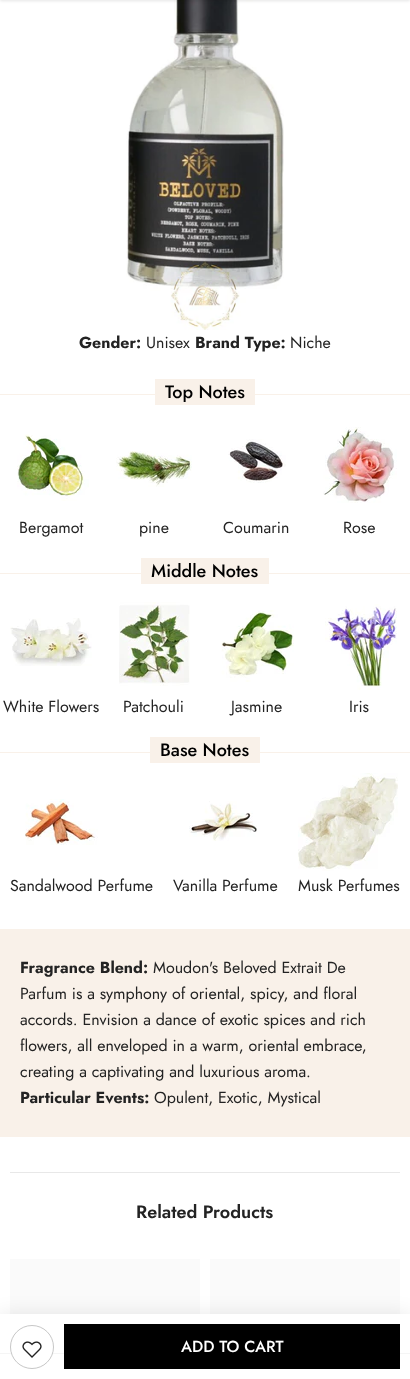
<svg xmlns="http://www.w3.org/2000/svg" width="410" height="1379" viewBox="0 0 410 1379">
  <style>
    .t1 { font: bold 16px Jost; fill: #232323; }
    .t2 { font: 16px Jost; fill: #232323; }
    .t3 { font: 500 18px Jost; fill: #000; }
    .t4 { font: 600 18px Jost; fill: #232323; }
    .t5 { font: 500 16px Jost; fill: #fff; }
  </style>
  <rect width="100%" height="100%" fill="#fff"/>
  <image x="126" y="0" width="158" height="330" href="images/1.png"/>
  <rect x="0" y="-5" width="410" height="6" fill="#0000001a" filter="blur(1.5px)"/>
  <text x="79" y="348" class="t1">Gender:</text>
  <text x="146" y="348" class="t2">Unisex</text>
  <text x="195" y="348" class="t1">Brand Type:</text>
  <text x="290" y="348" class="t2">Niche</text>
  <rect x="0" y="394" width="410" height="1" fill="#f9f1e9"/>
  <rect x="155" y="379" width="100" height="26" fill="#f9f1e9"/>
  <text x="165" y="398" class="t3">Top Notes</text>
  <image x="17" y="434" width="72" height="67" href="images/2.png"/>
  <text x="19" y="533" class="t2">Bergamot</text>
  <image x="116" y="451" width="76" height="36" href="images/3.png"/>
  <text x="139" y="533" class="t2">pine</text>
  <image x="228" y="439" width="58" height="44" href="images/4.png"/>
  <text x="223" y="533" class="t2">Coumarin</text>
  <image x="323" y="427" width="74" height="76" href="images/5.png"/>
  <text x="343" y="533" class="t2">Rose</text>
  <rect x="0" y="573" width="410" height="1" fill="#f9f1e9"/>
  <rect x="141" y="558" width="128" height="26" fill="#f9f1e9"/>
  <text x="151" y="577" class="t3">Middle Notes</text>
  <image x="10" y="618" width="82" height="48" href="images/6.png"/>
  <text x="3" y="712" class="t2">White Flowers</text>
  <image x="119" y="602" width="71" height="84" href="images/7.png"/>
  <text x="123" y="712" class="t2">Patchouli</text>
  <image x="221" y="610" width="73" height="72" href="images/8.png"/>
  <text x="231" y="712" class="t2">Jasmine</text>
  <image x="325" y="604" width="72" height="86" href="images/9.png"/>
  <text x="349" y="712" class="t2">Iris</text>
  <rect x="0" y="752" width="410" height="1" fill="#f9f1e9"/>
  <rect x="150" y="737" width="110" height="26" fill="#f9f1e9"/>
  <text x="160" y="756" class="t3">Base Notes</text>
  <image x="25" y="799" width="73" height="46" href="images/10.png"/>
  <text x="10" y="891" class="t2">Sandalwood Perfume</text>
  <image x="189" y="801" width="68" height="40" href="images/11.png"/>
  <text x="173" y="891" class="t2">Vanilla Perfume</text>
  <image x="298" y="773" width="100" height="98" href="images/12.png"/>
  <text x="298" y="891" class="t2">Musk Perfumes</text>
  <rect x="0" y="929" width="410" height="208" fill="#f9f1e9"/>
  <text x="20" y="973" class="t1">Fragrance Blend:</text>
  <text x="153" y="973" class="t2">Moudon's Beloved Extrait De</text>
  <text x="20" y="999" class="t2">Parfum is a symphony of oriental, spicy, and floral</text>
  <text x="20" y="1025" class="t2">accords. Envision a dance of exotic spices and rich</text>
  <text x="20" y="1051" class="t2">flowers, all enveloped in a warm, oriental embrace,</text>
  <text x="20" y="1077" class="t2">creating a captivating and luxurious aroma.</text>
  <text x="20" y="1103" class="t1">Particular Events:</text>
  <text x="154" y="1103" class="t2">Opulent, Exotic, Mystical</text>
  <rect x="10" y="1172" width="390" height="1" fill="#e8e8e8"/>
  <text x="136" y="1218" class="t4">Related Products</text>
  <rect x="10" y="1259" width="190" height="55" fill="#fafafa"/>
  <rect x="210" y="1259" width="190" height="55" fill="#fafafa"/>
  <rect x="0" y="1315" width="410" height="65" fill="#0000001a" filter="blur(10px)"/>
  <rect x="0" y="1314" width="410" height="65" fill="#fff"/>
  <rect x="0" y="1353" width="410" height="1" fill="#f5f5f5"/>
  <circle cx="32" cy="1347" r="21.5" fill="#fff" stroke="#c7c7c7"/>
  <image x="22" y="1341" width="20" height="17" href="images/13.png"/>
  <rect x="64" y="1324" width="336" height="45" fill="#000"/>
  <text x="181" y="1352" class="t5">ADD TO CART</text>
</svg>
